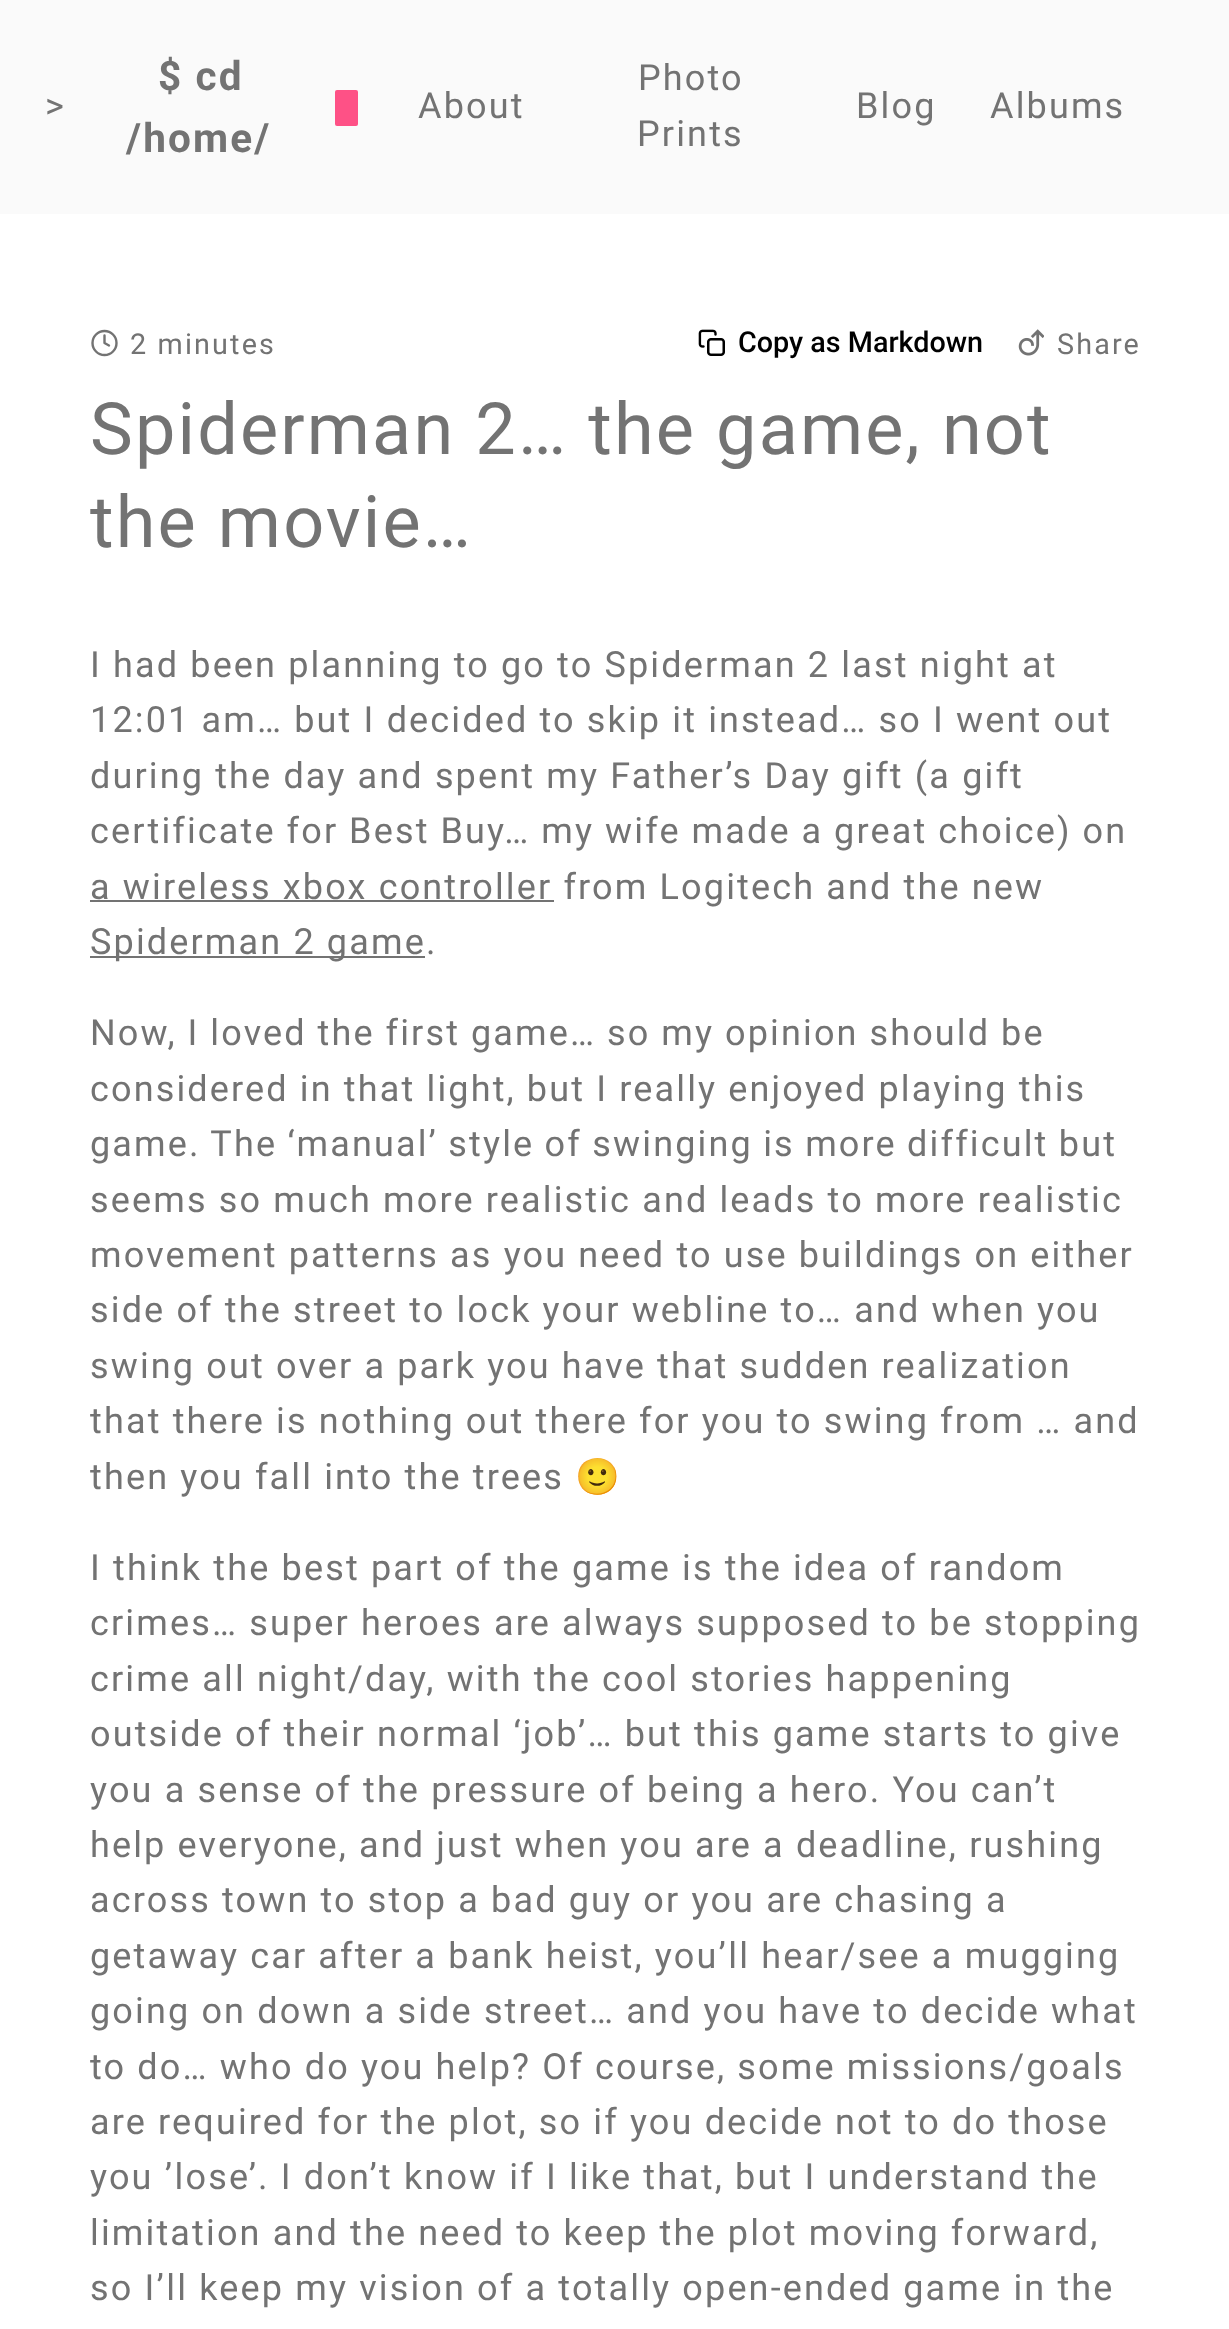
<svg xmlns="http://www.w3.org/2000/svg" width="1229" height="2329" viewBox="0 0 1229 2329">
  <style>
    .t1 { font: 36px Roboto; letter-spacing: 2.15px; fill: #737373; }
    .t2 { font: bold 40.5px Roboto; letter-spacing: 2.15px; fill: #737373; }
    .t3 { font: 28.75px Roboto; letter-spacing: 2.15px; fill: #737373; }
    .t4 { font: 500 28.75px Roboto; fill: #000; }
    .t5 { font: 72px Roboto; letter-spacing: 2.15px; fill: #737373; }
    .t6 { font: 36px Noto Color Emoji; letter-spacing: 2.15px; fill: #737373; }
  </style>
  <rect width="100%" height="100%" fill="#fff"/>
  <rect x="0" y="0" width="1229" height="214" fill="#fafafa"/>
  <text x="45" y="118" class="t1">&gt;</text>
  <text x="158" y="90" class="t2">$ cd</text>
  <text x="126" y="152" class="t2">/home/</text>
  <rect x="335" y="90" width="23" height="36" rx="2" fill="#fe5186"/>
  <text x="418" y="118" class="t1">About</text>
  <text x="638" y="90" class="t1">Photo</text>
  <text x="637" y="146" class="t1">Prints</text>
  <text x="856" y="118" class="t1">Blog</text>
  <text x="990" y="118" class="t1">Albums</text>
  <circle cx="104.5" cy="343" r="12" fill="none" stroke="#737373" stroke-width="2.4"/>
  <path d="M104.5 335.5V343L109 345.5" fill="none" stroke="#737373" stroke-width="2.4" stroke-linecap="round" stroke-linejoin="round"/>
  <text x="130" y="354" class="t3">2 minutes</text>
  <image x="698" y="329" width="27" height="27" href="images/1.png"/>
  <text x="738" y="352" class="t4">Copy as Markdown</text>
  <image x="1018" y="329" width="26" height="27" href="images/2.png"/>
  <text x="1057" y="354" class="t3">Share</text>
  <text x="90" y="454" class="t5">Spiderman 2… the game, not</text>
  <text x="90" y="547" class="t5">the movie…</text>
  <text x="90" y="677" class="t1">I had been planning to go to Spiderman 2 last night at</text>
  <text x="90" y="732" class="t1">12:01 am… but I decided to skip it instead… so I went out</text>
  <text x="90" y="788" class="t1">during the day and spent my Father’s Day gift (a gift</text>
  <text x="90" y="843" word-spacing="-0.25" class="t1">certificate for Best Buy… my wife made a great choice) on</text>
  <rect x="90" y="900" width="464" height="2" fill="#737373"/>
  <text x="90" y="899" class="t1">a wireless xbox controller from Logitech and the new</text>
  <rect x="90" y="956" width="335" height="2" fill="#737373"/>
  <text x="90" y="954" class="t1">Spiderman 2 game.</text>
  <text x="90" y="1045" word-spacing="-0.25" class="t1">Now, I loved the first game… so my opinion should be</text>
  <text x="90" y="1101" class="t1">considered in that light, but I really enjoyed playing this</text>
  <text x="90" y="1156" word-spacing="-0.75" class="t1">game. The ‘manual’ style of swinging is more difficult but</text>
  <text x="90" y="1212" class="t1">seems so much more realistic and leads to more realistic</text>
  <text x="90" y="1267" class="t1">movement patterns as you need to use buildings on either</text>
  <text x="90" y="1322" class="t1">side of the street to lock your webline to… and when you</text>
  <text x="90" y="1378" class="t1">swing out over a park you have that sudden realization</text>
  <text x="90" y="1433" class="t1">that there is nothing out there for you to swing from … and</text>
  <text x="90" y="1489" class="t1">then you fall into the trees</text>
  <text x="575" y="1489" class="t6">🙂</text>
  <text x="90" y="1580" class="t1">I think the best part of the game is the idea of random</text>
  <text x="90" y="1635" class="t1">crimes… super heroes are always supposed to be stopping</text>
  <text x="90" y="1691" class="t1">crime all night/day, with the cool stories happening</text>
  <text x="90" y="1746" class="t1">outside of their normal ‘job’… but this game starts to give</text>
  <text x="90" y="1802" class="t1">you a sense of the pressure of being a hero. You can’t</text>
  <text x="90" y="1857" class="t1">help everyone, and just when you are a deadline, rushing</text>
  <text x="90" y="1912" class="t1">across town to stop a bad guy or you are chasing a</text>
  <text x="90" y="1968" class="t1">getaway car after a bank heist, you’ll hear/see a mugging</text>
  <text x="90" y="2023" class="t1">going on down a side street… and you have to decide what</text>
  <text x="90" y="2079" class="t1">to do… who do you help? Of course, some missions/goals</text>
  <text x="90" y="2134" class="t1">are required for the plot, so if you decide not to do those</text>
  <text x="90" y="2189" class="t1">you ’lose’. I don’t know if I like that, but I understand the</text>
  <text x="90" y="2245" class="t1">limitation and the need to keep the plot moving forward,</text>
  <text x="90" y="2300" class="t1">so I’ll keep my vision of a totally open-ended game in the</text>
</svg>
